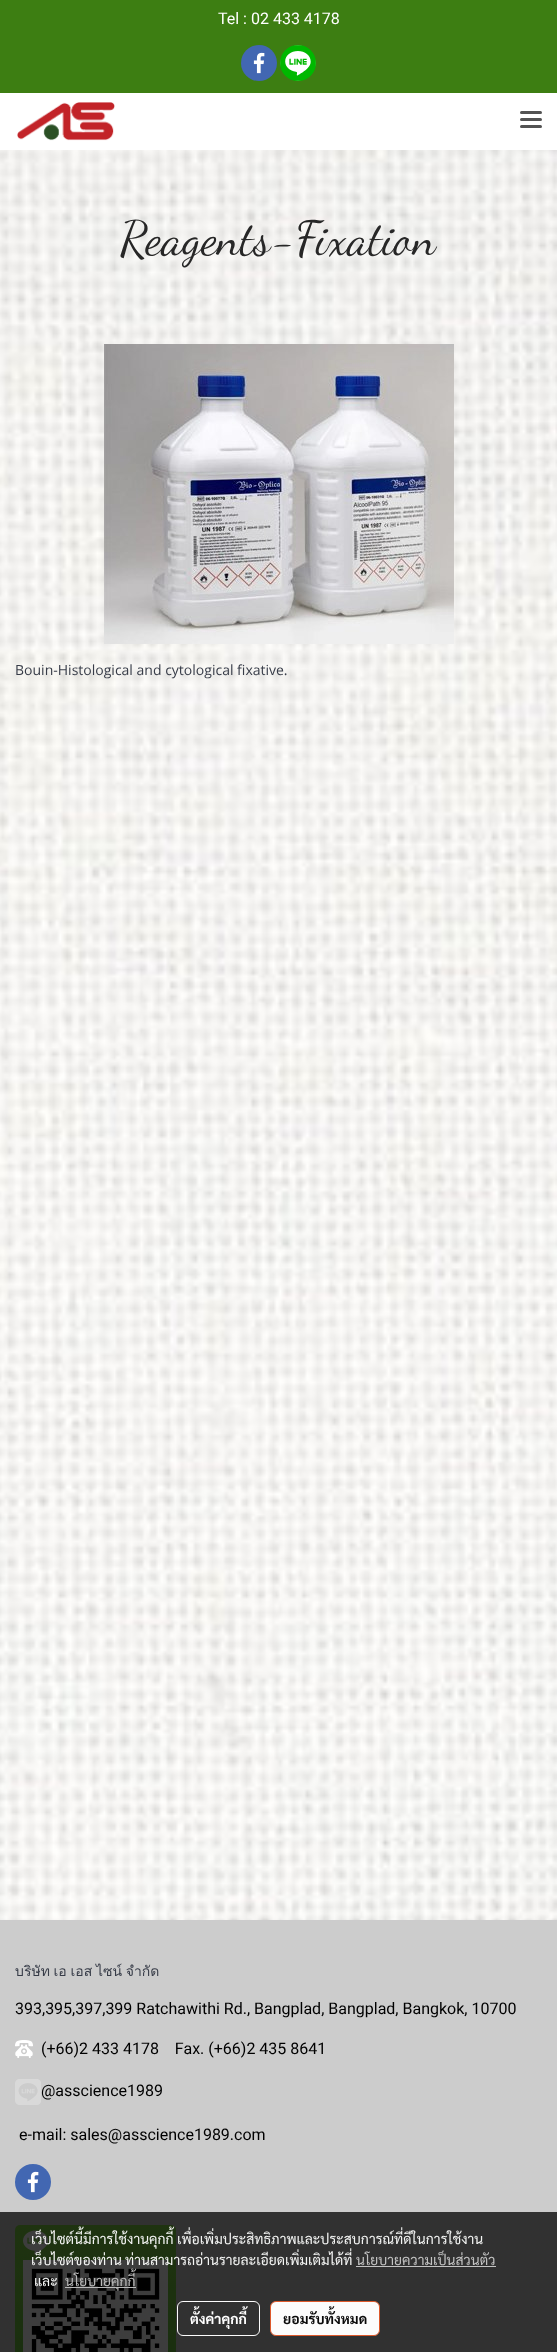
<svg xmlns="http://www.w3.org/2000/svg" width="557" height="2352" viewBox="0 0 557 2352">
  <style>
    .t1 { font: 16px Roboto; fill: #fff; }
    .t2 { font: 48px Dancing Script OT; fill: #272727; }
    .t3 { font: 14px Open Sans; fill: #373c48; }
    .t4 { font: 14px Loma; fill: #373c48; }
    .t5 { font: 16px Roboto; fill: #000; }
    .t6 { font: 14px Sarabun; fill: #f4f5f4; }
    .t7 { font: 14px Sarabun; fill: #c3c3c3; }
    .t8 { font: 14px Sarabun; fill: #bababa; }
    .t9 { font: bold 14px Sarabun; fill: #fff; }
    .t10 { font: bold 14px Sarabun; fill: #0a0a0a; }
  </style>
  <defs>
    <linearGradient id="g1" gradientUnits="userSpaceOnUse" x1="95" y1="2225" x2="96" y2="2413"><stop offset="0" stop-color="#80d544"/><stop offset="1" stop-color="#65bc3e"/></linearGradient>
  </defs>
  <rect width="100%" height="100%" fill="#fff"/>
  <image x="0" y="150" width="557" height="1770" href="images/1.png"/>
  <rect x="0" y="0" width="557" height="93" fill="#3d7e12"/>
  <text x="218" y="24" class="t1">Tel : 02 433 4178</text>
  <circle cx="259" cy="63" r="18" fill="#4267b2"/>
  <image x="253" y="52" width="12" height="22" href="images/2.png"/>
  <circle cx="298" cy="63" r="18" fill="#00b800"/>
  <image x="280" y="45" width="36" height="36" href="images/3.png"/>
  <image x="17" y="102" width="98" height="39" href="images/4.png"/>
  <rect x="520" y="118" width="22" height="3" rx="1.5" fill="#535353"/>
  <rect x="520" y="111" width="22" height="3" rx="1.5" fill="#535353"/>
  <rect x="520" y="125" width="22" height="3" rx="1.5" fill="#535353"/>
  <text x="120" y="254" class="t2">Reagents-Fixation</text>
  <image x="104" y="344" width="350" height="300" href="images/5.png"/>
  <text x="15" y="675" class="t3">Bouin-Histological and cytological fixative.</text>
  <rect x="0" y="1920" width="557" height="432" fill="#ccc"/>
  <text x="15" y="1976" word-spacing="-1" class="t4">บริษัท เอ เอส ไซน์ จำกัด</text>
  <text x="15" y="2014" class="t5">393,395,397,399 Ratchawithi Rd., Bangplad, Bangplad, Bangkok, 10700</text>
  <image x="15" y="2040" width="18" height="18" href="images/6.png"/>
  <text x="41" y="2054" class="t5" xml:space="preserve">(+66)2 433 4178    Fax. (+66)2 435 8641</text>
  <image x="15" y="2079" width="26" height="26" href="images/7.png"/>
  <text x="41" y="2096" class="t5">@asscience1989</text>
  <text x="19" y="2140" class="t5">e-mail: sales@asscience1989.com</text>
  <circle cx="33" cy="2182" r="18" fill="#4267b2"/>
  <image x="27" y="2171" width="12" height="22" href="images/2.png"/>
  <rect x="15" y="2225" width="161" height="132" rx="5" fill="url(#g1)"/>
  <image x="23" y="2230" width="25" height="25" href="images/8.png"/>
  <image x="23" y="2260" width="145" height="92" href="images/9.png"/>
  <rect x="0" y="2212" width="557" height="140" fill="#000000c2"/>
  <text x="31" y="2244" class="t6">เว็บไซต์นี้มีการใช้งานคุกกี้ เพื่อเพิ่มประสิทธิภาพและประสบการณ์ที่ดีในการใช้งาน</text>
  <text x="31" y="2265" class="t6">เว็บไซต์ของท่าน</text>
  <text x="125" y="2265" class="t6">ท่านสามารถอ่านรายละเอียดเพิ่มเติมได้ที่</text>
  <text x="356" y="2265" class="t7">นโยบายความเป็นส่วนตัว</text>
  <rect x="356" y="2266" width="140" height="1" fill="#c3c3c3"/>
  <text x="34" y="2286" class="t6">และ</text>
  <rect x="65" y="2287" width="71" height="1" fill="#c2c2c2f2"/>
  <text x="65" y="2286" class="t8">นโยบายคุกกี้</text>
  <rect x="177.5" y="2301.5" width="82" height="34" rx="5.5" fill="none" stroke="#fcfcfc"/>
  <text x="190" y="2324" class="t9">ตั้งค่าคุกกี้</text>
  <rect x="270.5" y="2301.5" width="109" height="34" rx="5.5" fill="#fcfcfc" stroke="#dd592b"/>
  <text x="283" y="2324" class="t10">ยอมรับทั้งหมด</text>
</svg>
